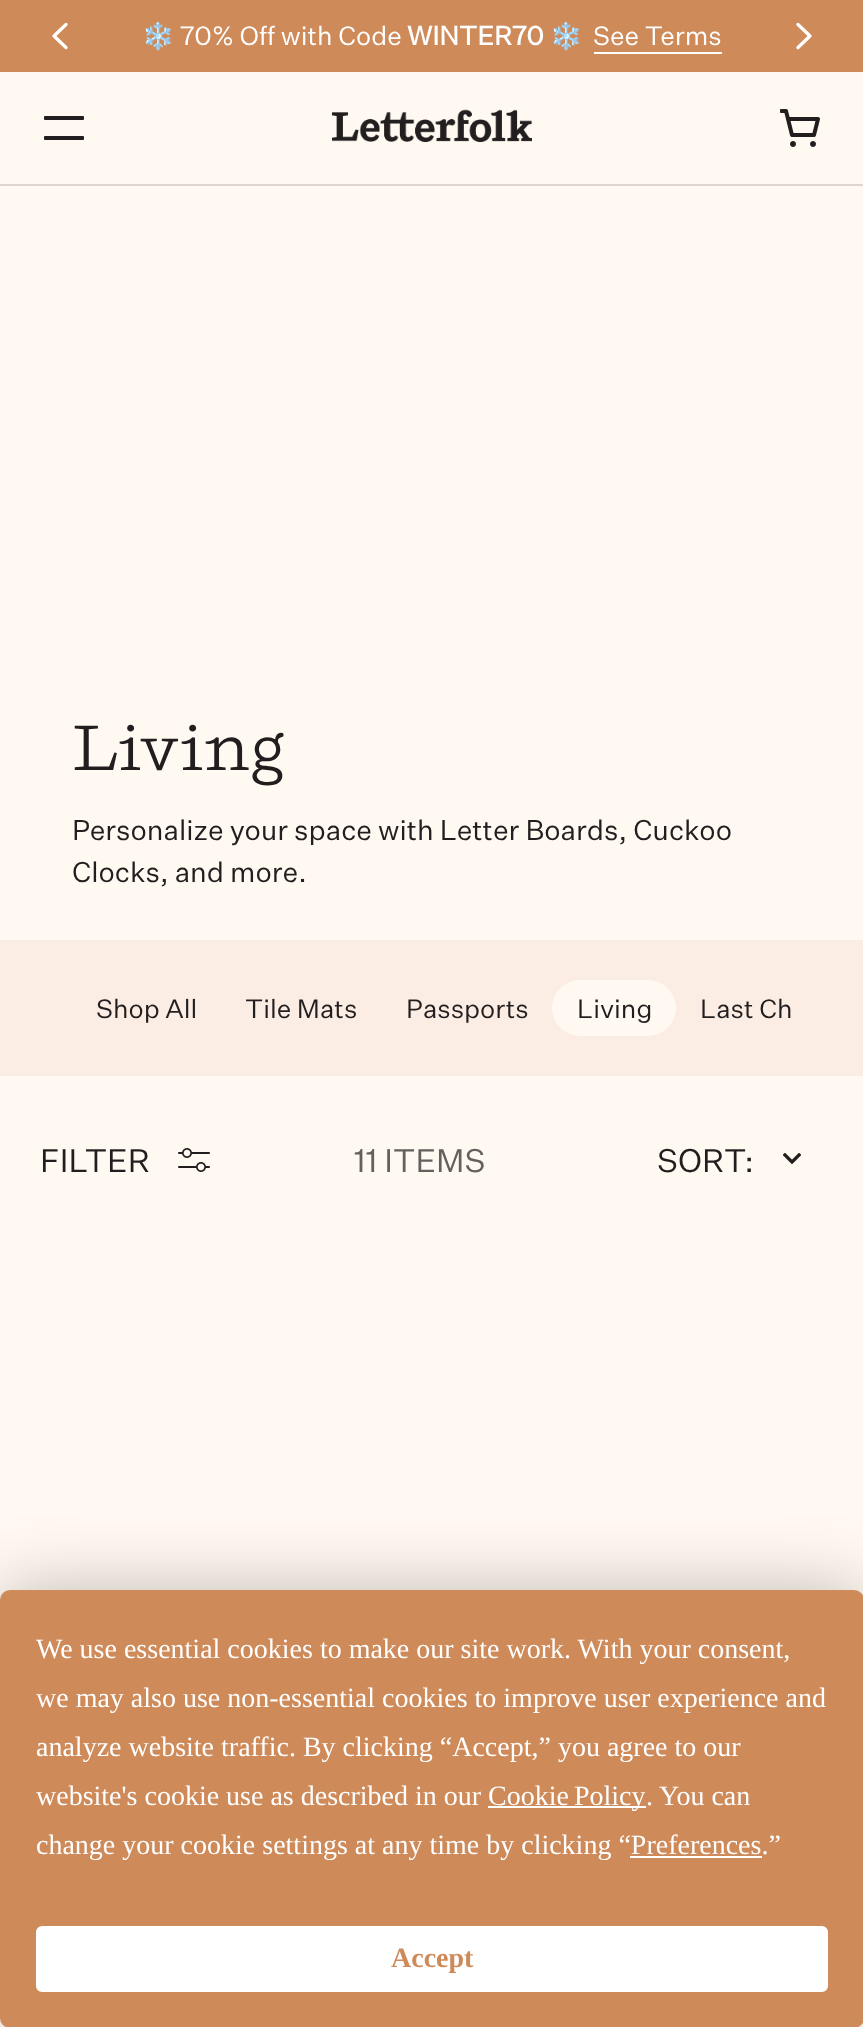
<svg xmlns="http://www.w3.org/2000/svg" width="863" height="2027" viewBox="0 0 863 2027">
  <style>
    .t1 { font: 26px Noto Color Emoji; fill: #fff; }
    .t2 { font: 26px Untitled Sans; fill: #fff; }
    .t3 { font: bold 26px Untitled Sans; fill: #fff; }
    .t4 { font: 64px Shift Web; fill: #221e1f; }
    .t5 { font: 28px Untitled Sans; fill: #221e1f; }
    .t6 { font: 26px Untitled Sans; fill: #221e1f; }
    .t7 { font: 32px Untitled Sans; fill: #221e1f; }
    .t8 { font: 32px Untitled Sans; fill: #64605e; }
    .t9 { font: 28px Liberation Serif; fill: #fff; }
    .t10 { font: bold 28px Liberation Serif; fill: #ce8a59; }
  </style>
  <rect width="100%" height="100%" fill="#fff9f1"/>
  <rect x="0" y="0" width="863" height="72" fill="#ce8a59"/>
  <text x="142" y="45" class="t1">❄️</text>
  <text x="180" y="45" class="t2">70% Off with Code</text>
  <text x="407" y="45" class="t3">WINTER70</text>
  <text x="550" y="45" class="t1">❄️</text>
  <text x="593" y="45" class="t2">See Terms</text>
  <rect x="594" y="52" width="128" height="2" fill="#fff"/>
  <path d="M66 24.5L54 36L66 47.5" fill="none" stroke="#fff" stroke-width="3.3" stroke-linecap="round" stroke-linejoin="round"/>
  <path d="M798 24.5L810 36L798 47.5" fill="none" stroke="#fff" stroke-width="3.3" stroke-linecap="round" stroke-linejoin="round"/>
  <rect x="0" y="184" width="863" height="2" fill="#dcd6cf"/>
  <image x="44" y="116" width="40" height="24" href="images/1.png"/>
  <image x="332" y="109" width="200" height="34" href="images/2.png"/>
  <image x="780" y="109" width="40" height="38" href="images/3.png"/>
  <text x="72" y="770" class="t4">Living</text>
  <text x="72" y="840" class="t5">Personalize your space with Letter Boards, Cuckoo</text>
  <text x="72" y="882" class="t5">Clocks, and more.</text>
  <rect x="0" y="940" width="863" height="136" fill="#fcede4"/>
  <text x="96" y="1018" class="t6">Shop All</text>
  <text x="245" y="1018" class="t6">Tile Mats</text>
  <text x="406" y="1018" class="t6">Passports</text>
  <rect x="552" y="980" width="124" height="56" rx="28" fill="#fff9f1"/>
  <text x="577" y="1018" class="t6">Living</text>
  <text x="700" y="1018" class="t6">Last Ch</text>
  <text x="40" y="1172" class="t7">FILTER</text>
  <image x="178" y="1148" width="32" height="24" href="images/4.png"/>
  <text x="354" y="1172" class="t8">11 ITEMS</text>
  <text x="657" y="1172" class="t7">SORT:</text>
  <image x="783" y="1153" width="18" height="11" href="images/5.png"/>
  <rect x="0" y="1590" width="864" height="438" rx="10" fill="#00000040" filter="blur(35px)"/>
  <rect x="0" y="1590" width="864" height="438" rx="10" fill="#ce8a59"/>
  <text x="36" y="1658" class="t9">We use essential cookies to make our site work. With your consent,</text>
  <text x="36" y="1707" class="t9">we may also use non-essential cookies to improve user experience and</text>
  <text x="36" y="1756" class="t9">analyze website traffic. By clicking “Accept,” you agree to our</text>
  <text x="36" y="1805" class="t9">website's cookie use as described in our</text>
  <rect x="488" y="1806" width="158" height="2" fill="#fff"/>
  <text x="488" y="1805" word-spacing="-2" class="t9">Cookie Policy</text>
  <text x="646" y="1805" class="t9">. You can</text>
  <text x="36" y="1854" class="t9">change your cookie settings at any time by clicking “Preferences.”</text>
  <rect x="630" y="1856" width="132" height="2" fill="#fff"/>
  <rect x="37" y="1927" width="790" height="64" rx="5" fill="#fff" stroke="#fff" stroke-width="2"/>
  <text x="391" y="1967" class="t10">Accept</text>
</svg>
